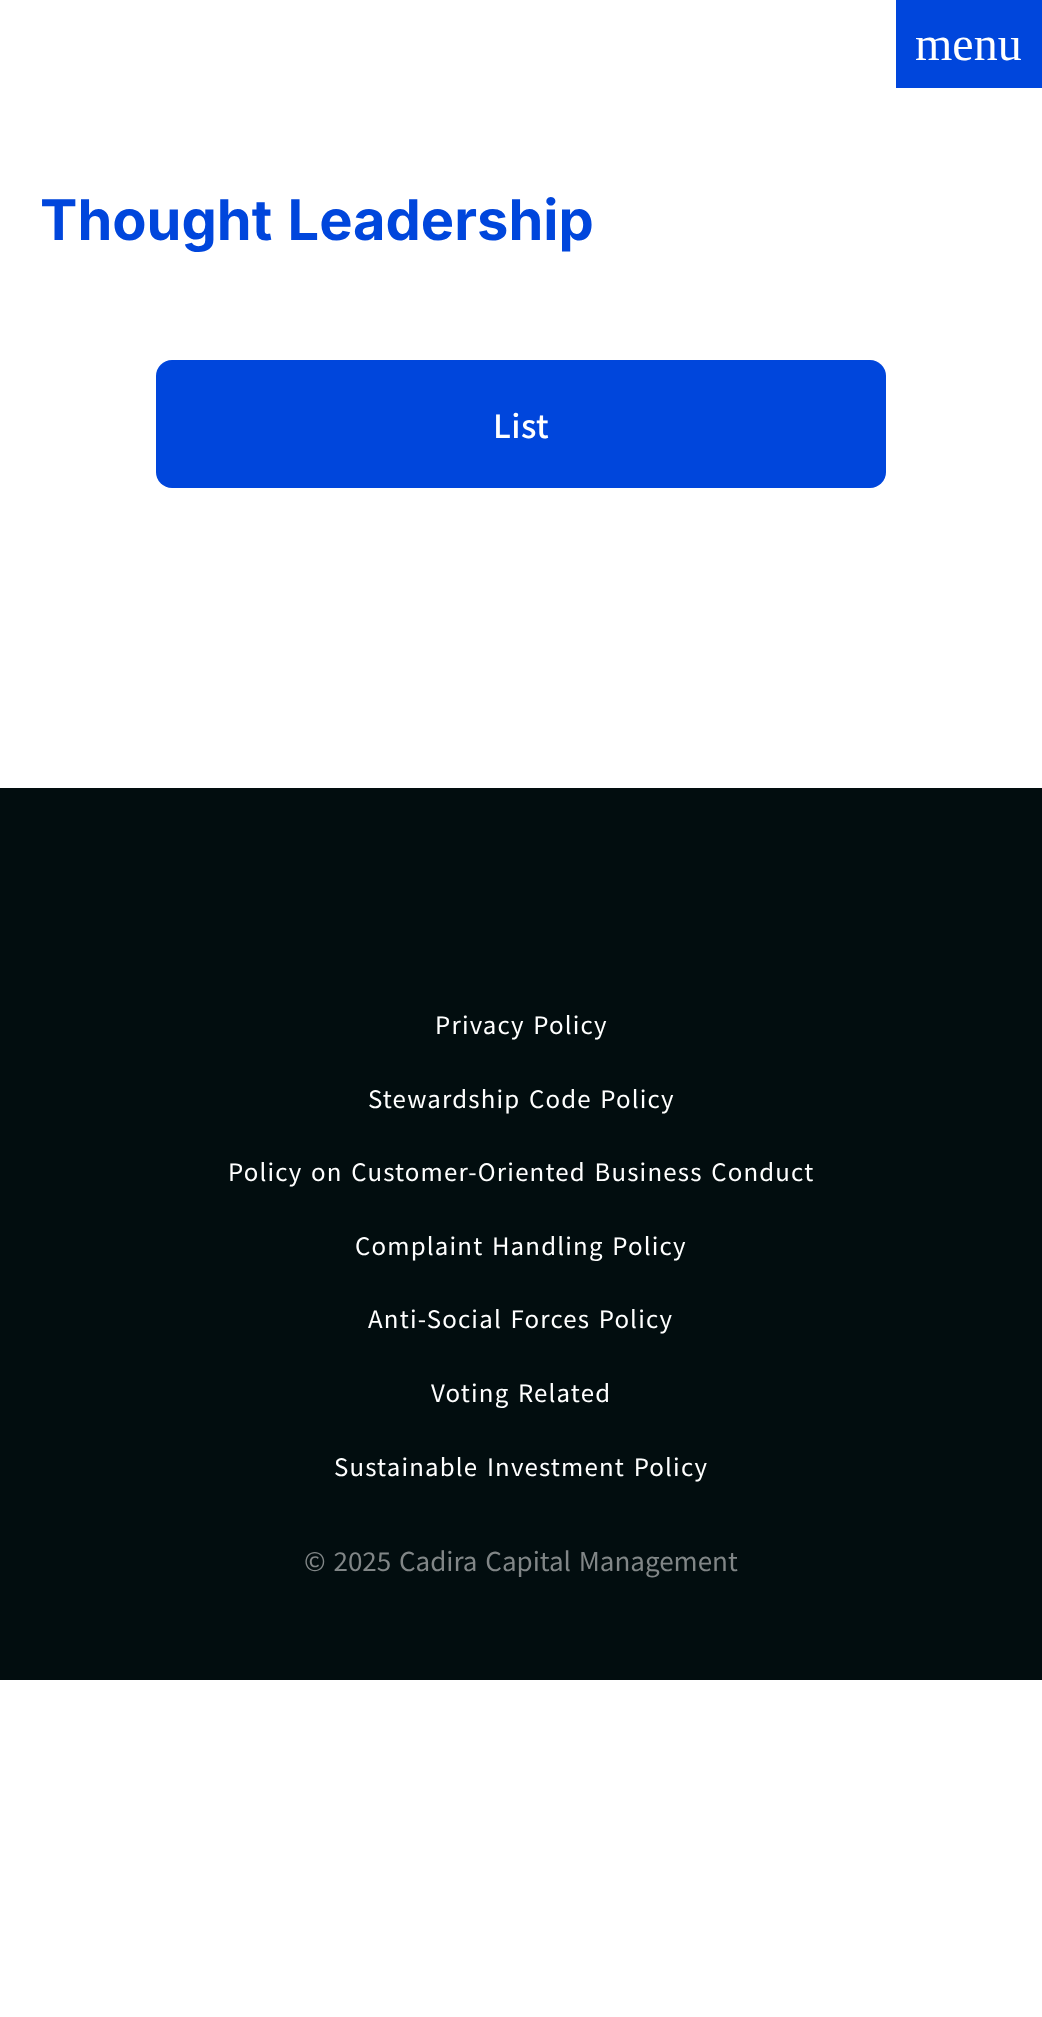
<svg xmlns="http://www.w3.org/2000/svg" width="1042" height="2017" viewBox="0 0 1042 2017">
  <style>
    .t1 { font: 48px Liberation Serif; fill: #fff; }
    .t2 { font: bold 56px Inter; fill: #0046dc; }
    .t3 { font: 500 32px Noto Sans JP; letter-spacing: 0.5px; fill: #fff; }
    .t4 { font: 24px Noto Sans JP; letter-spacing: 1.2px; fill: #fff; }
    .t5 { font: 26px Noto Sans JP; fill: #818687; }
  </style>
  <rect width="100%" height="100%" fill="#fff"/>
  <rect x="896" y="0" width="146" height="88" fill="#0046dc"/>
  <text x="915" y="60" class="t1">menu</text>
  <text x="40" y="240" word-spacing="2" class="t2">Thought Leadership</text>
  <rect x="156" y="360" width="730" height="128" rx="16" fill="#0046dc"/>
  <text x="493" y="438" class="t3">List</text>
  <rect x="0" y="788" width="1042" height="892" fill="#020d0f"/>
  <text x="435" y="1034" word-spacing="2" class="t4">Privacy Policy</text>
  <text x="368" y="1108" word-spacing="2" class="t4">Stewardship Code Policy</text>
  <text x="228" y="1181" word-spacing="2" class="t4">Policy on Customer-Oriented Business Conduct</text>
  <text x="355" y="1255" word-spacing="2" class="t4">Complaint Handling Policy</text>
  <text x="368" y="1328" word-spacing="2" class="t4">Anti-Social Forces Policy</text>
  <text x="431" y="1402" word-spacing="2" class="t4">Voting Related</text>
  <text x="334" y="1476" word-spacing="2" class="t4">Sustainable Investment Policy</text>
  <text x="304" y="1571" word-spacing="2" class="t5">© 2025 Cadira Capital Management</text>
</svg>
